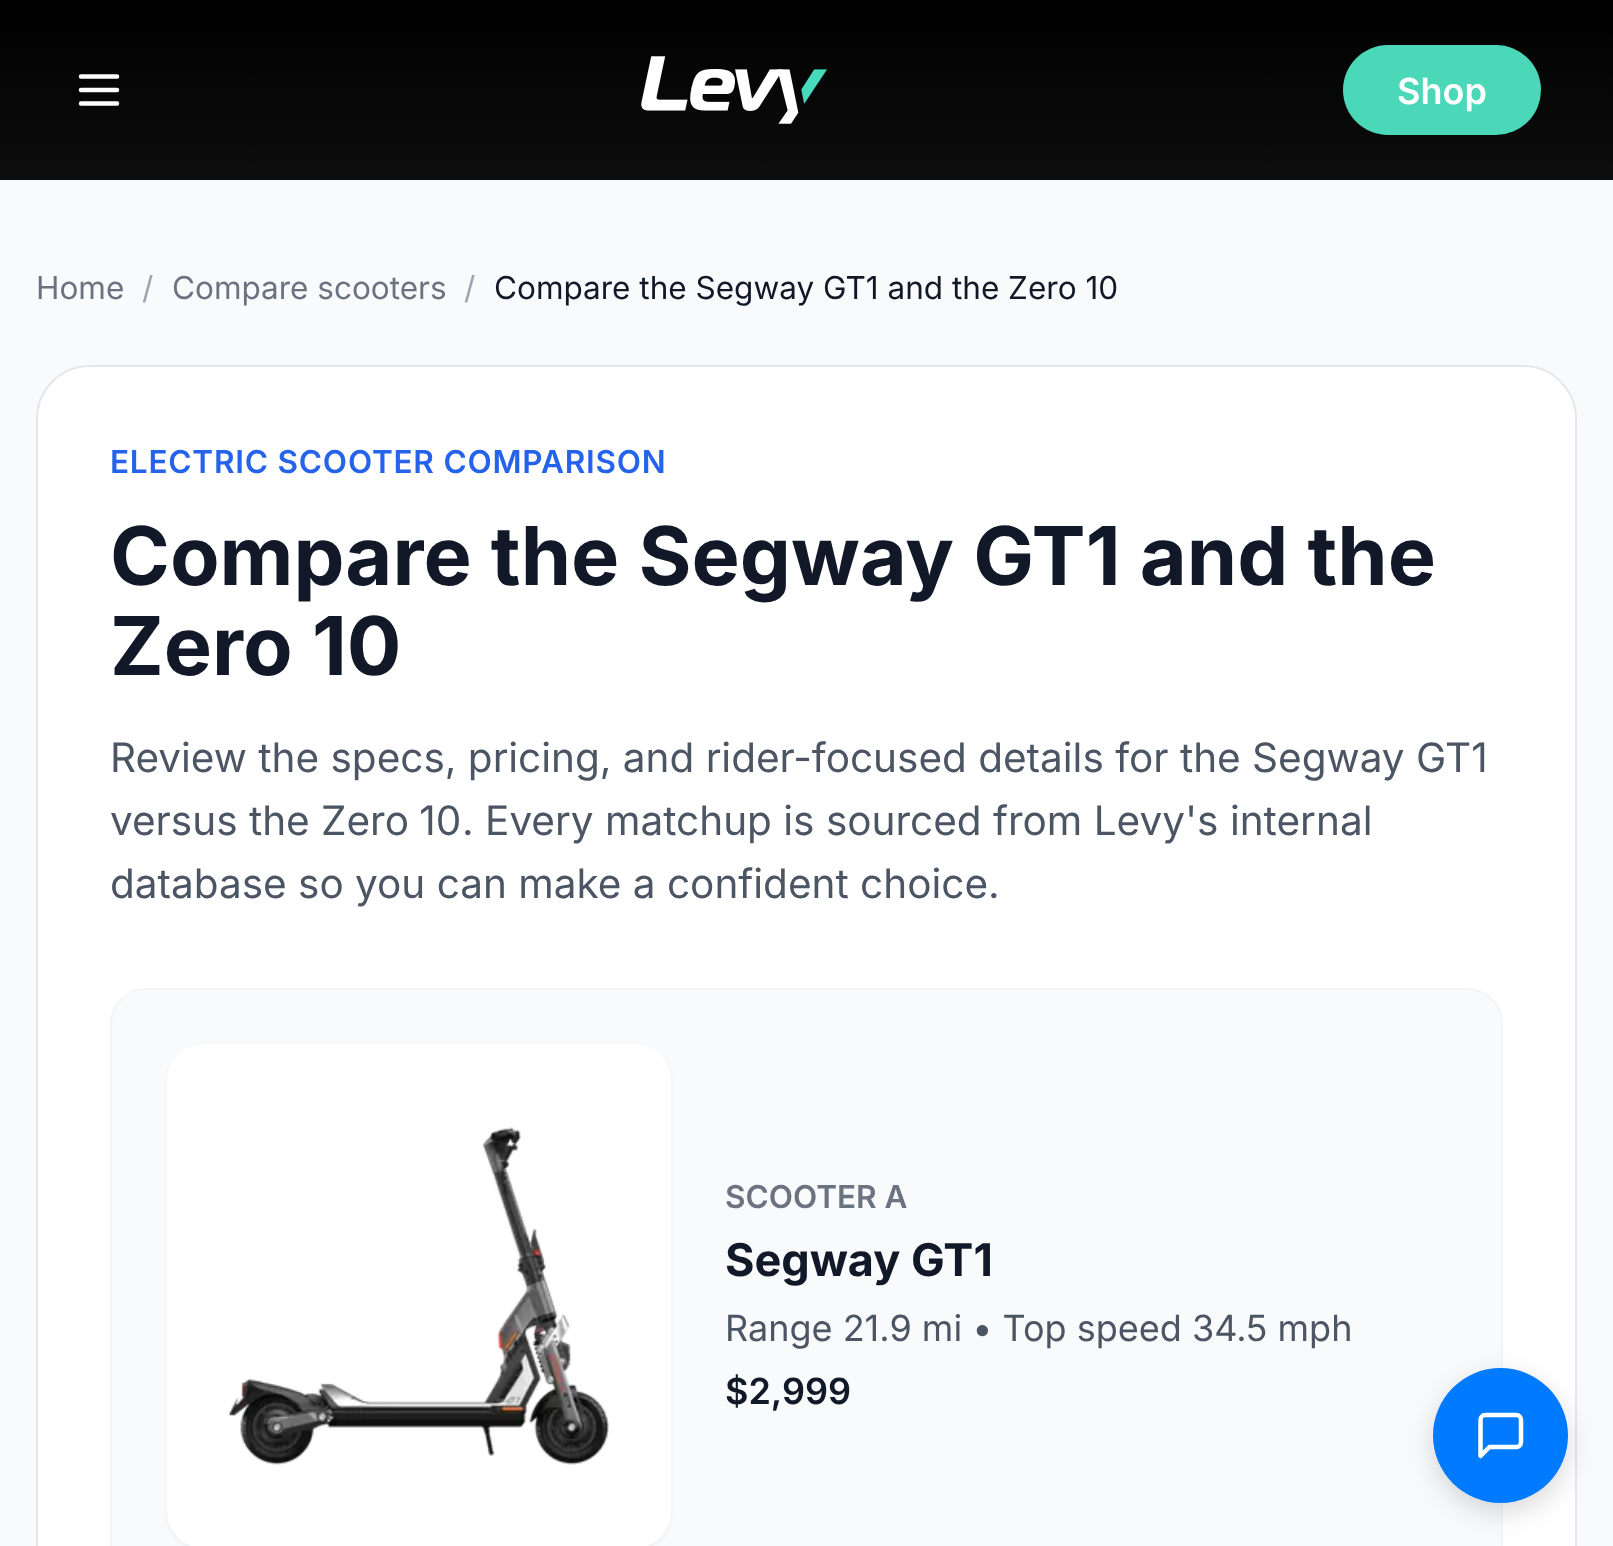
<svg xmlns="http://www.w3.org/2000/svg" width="1613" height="1546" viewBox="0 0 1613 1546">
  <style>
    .t1 { font: 600 36px Inter; fill: #fff; }
    .t2 { font: 31.5px Inter; fill: #6b7280; }
    .t3 { font: 31.5px Inter; fill: #9ca3af; }
    .t4 { font: 31.5px Inter; fill: #111827; }
    .t5 { font: 600 31.5px Inter; letter-spacing: 0.8px; fill: #2563eb; }
    .t6 { font: bold 81px Inter; fill: #111827; }
    .t7 { font: 40.5px Inter; fill: #4b5563; }
    .t8 { font: 600 31.5px Inter; fill: #6b7280; }
    .t9 { font: bold 45px Inter; fill: #111827; }
    .t10 { font: 36px Inter; fill: #4b5563; }
    .t11 { font: 600 36px Inter; fill: #111827; }
  </style>
  <defs>
    <linearGradient id="g1" gradientUnits="userSpaceOnUse" x1="807" y1="0" x2="807" y2="180"><stop offset="0" stop-color="#000"/><stop offset="1" stop-color="#000" stop-opacity="0.95"/></linearGradient>
  </defs>
  <rect width="100%" height="100%" fill="#fff"/>
  <rect x="0" y="158" width="1613" height="1388" fill="#f9fafb"/>
  <rect x="0" y="0" width="1613" height="180" fill="url(#g1)"/>
  <path d="M81 76.5H117M81 90H117M81 103.5H117" fill="none" stroke="#fff" stroke-width="4.5" stroke-linecap="round" stroke-linejoin="round"/>
  <image x="641" y="56" width="186" height="68" href="images/1.png"/>
  <rect x="1343" y="45" width="198" height="90" rx="45" fill="#4bd8b9"/>
  <text x="1397" y="104" class="t1">Shop</text>
  <text x="36" y="299" class="t2">Home</text>
  <text x="142" y="299" class="t3">/</text>
  <text x="172" y="299" class="t2">Compare scooters</text>
  <text x="464" y="299" class="t3">/</text>
  <text x="494" y="299" class="t4">Compare the Segway GT1 and the Zero 10</text>
  <rect x="37" y="366" width="1539" height="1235" rx="53" fill="#fff" stroke="#e5e7eb" stroke-width="2"/>
  <text x="110" y="473" class="t5">ELECTRIC SCOOTER COMPARISON</text>
  <text x="110" y="585" class="t6">Compare the Segway GT1 and the</text>
  <text x="110" y="675" class="t6">Zero 10</text>
  <text x="110" y="772" class="t7">Review the specs, pricing, and rider-focused details for the Segway GT1</text>
  <text x="110" y="835" class="t7">versus the</text>
  <text x="321" y="835" word-spacing="-1" class="t7">Zero 10</text>
  <text x="462" y="835" class="t7">. Every matchup is sourced from Levy's internal</text>
  <text x="110" y="898" class="t7">database so you can make a confident choice.</text>
  <rect x="111" y="989" width="1391" height="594" rx="35" fill="#f9fafb" stroke="#f3f4f6" stroke-width="2"/>
  <rect x="167" y="1046" width="504" height="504" rx="36" fill="#0000000d" filter="blur(2px)"/>
  <rect x="167" y="1044" width="504" height="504" rx="36" fill="#fff"/>
  <image x="228" y="1127" width="381" height="338" href="images/2.png"/>
  <text x="725" y="1208" class="t8">SCOOTER A</text>
  <text x="725" y="1276" class="t9">Segway GT1</text>
  <text x="725" y="1341" class="t10">Range 21.9 mi • Top speed 34.5 mph</text>
  <text x="725" y="1404" class="t11">$2,999</text>
  <rect x="1433" y="1377" width="135" height="135" rx="67.5" fill="#00000026" filter="blur(13.5px)"/>
  <circle cx="1500.5" cy="1435.5" r="67.5" fill="#007bff"/>
  <path d="M1521 1442C1521 1444.5 1519 1447 1516.5 1447H1489.5L1480.5 1456V1420C1480.5 1417.5 1482.5 1415 1485 1415H1516.5C1519 1415 1521 1417.5 1521 1420Z" fill="none" stroke="#fff" stroke-width="4.5" stroke-linecap="round" stroke-linejoin="round"/>
</svg>
